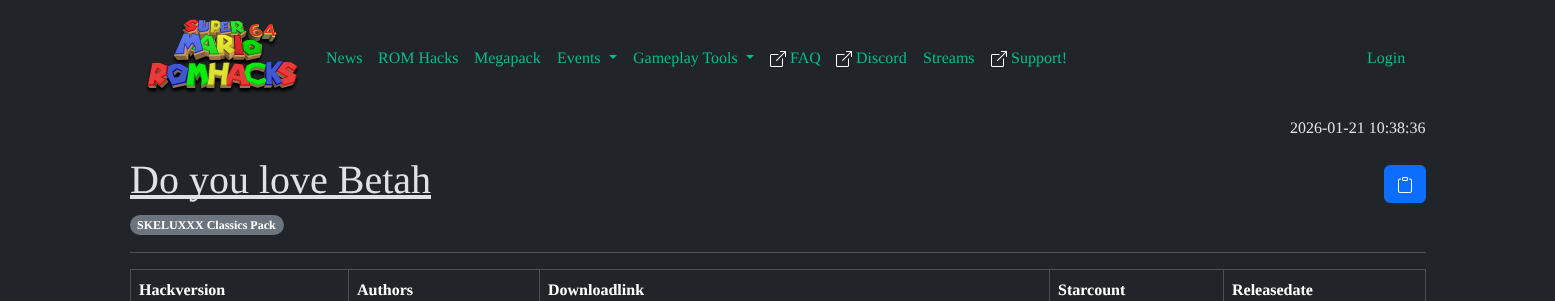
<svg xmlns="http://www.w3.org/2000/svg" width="1555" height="301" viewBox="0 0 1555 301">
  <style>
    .t1 { font: 16px Liberation Serif; fill: #00bc8c; }
    .t2 { font: 16px Liberation Serif; fill: #dee2e6; }
    .t3 { font: 40px Liberation Serif; fill: #dee2e6; }
    .t4 { font: bold 12px Liberation Serif; fill: #fff; }
    .t5 { font: bold 16px Liberation Serif; fill: #fff; }
  </style>
  <rect width="100%" height="100%" fill="#212529"/>
  <image x="146" y="19" width="153" height="74" href="images/1.png"/>
  <text x="326" y="63" class="t1">News</text>
  <text x="378" y="63" class="t1">ROM Hacks</text>
  <text x="474" y="63" class="t1">Megapack</text>
  <text x="557" y="63" class="t1">Events</text>
  <path d="M609 55H617L613 59Z" fill="#00bc8c"/>
  <text x="633" y="63" class="t1">Gameplay Tools</text>
  <path d="M746 55H754L750 59Z" fill="#00bc8c"/>
  <image x="770" y="51" width="16" height="16" href="images/2.png"/>
  <text x="790" y="63" class="t1">FAQ</text>
  <image x="836" y="51" width="16" height="16" href="images/2.png"/>
  <text x="856" y="63" class="t1">Discord</text>
  <text x="923" y="63" class="t1">Streams</text>
  <image x="991" y="51" width="16" height="16" href="images/2.png"/>
  <text x="1011" y="63" class="t1">Support!</text>
  <text x="1367" y="63" class="t1">Login</text>
  <text x="1290" y="133" class="t2">2026-01-21 10:38:36</text>
  <rect x="130" y="195" width="301" height="4" fill="#dee2e6"/>
  <text x="130" y="193" class="t3">Do you love Betah</text>
  <rect x="1384.5" y="165.5" width="41" height="37" rx="5.5" fill="#0d6efd" stroke="#0d6efd"/>
  <image x="1398" y="177" width="14" height="16" href="images/3.png"/>
  <rect x="130" y="215" width="154" height="20" rx="10" fill="#6c757d"/>
  <text x="137" y="229" class="t4">SKELUXXX Classics Pack</text>
  <rect x="130" y="252" width="1296" height="1" fill="#505458"/>
  <rect x="130" y="269" width="1296" height="1" fill="#495057"/>
  <rect x="130" y="269" width="1" height="32" fill="#495057"/>
  <text x="139" y="295" class="t5">Hackversion</text>
  <rect x="348" y="269" width="1" height="32" fill="#495057"/>
  <text x="357" y="295" class="t5">Authors</text>
  <rect x="539" y="269" width="1" height="32" fill="#495057"/>
  <text x="548" y="295" class="t5">Downloadlink</text>
  <rect x="1049" y="269" width="1" height="32" fill="#495057"/>
  <text x="1058" y="295" class="t5">Starcount</text>
  <rect x="1425" y="269" width="1" height="32" fill="#495057"/>
  <rect x="1223" y="269" width="1" height="32" fill="#495057"/>
  <text x="1232" y="295" class="t5">Releasedate</text>
</svg>
